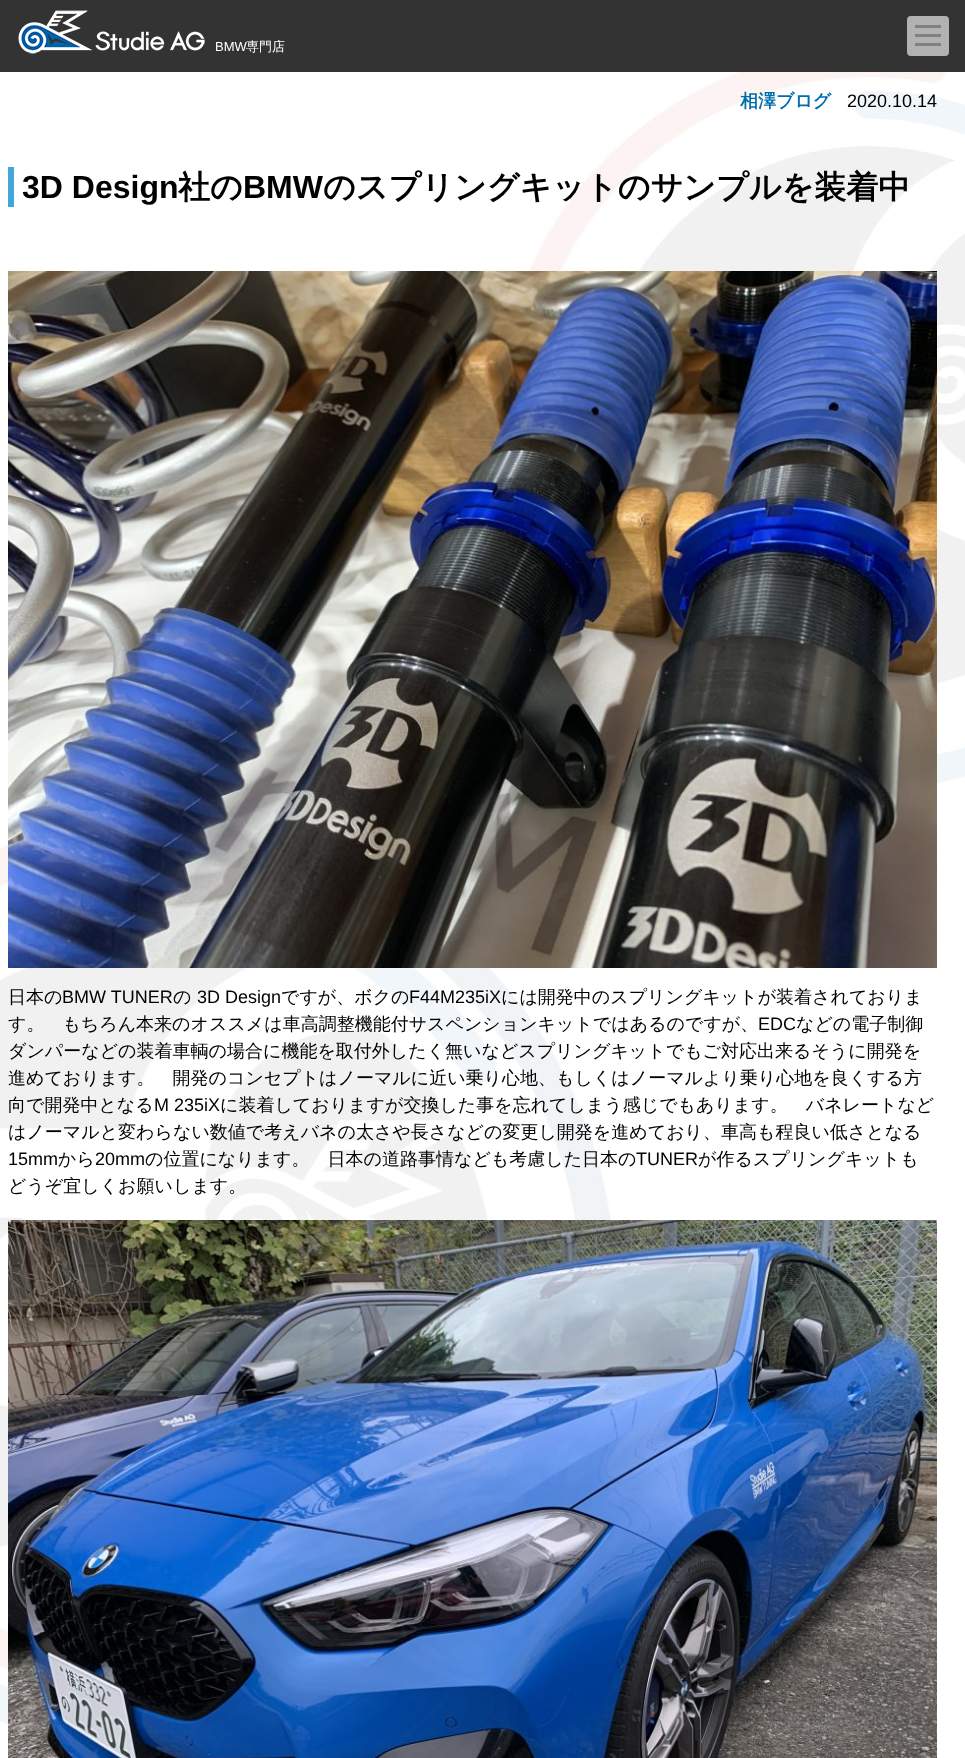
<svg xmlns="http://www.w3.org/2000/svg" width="965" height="1758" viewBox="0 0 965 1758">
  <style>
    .t1 { font: 13px Liberation Sans; fill: #fff; }
    .t2 { font: 500 13px WenQuanYi Zen Hei; fill: #fff; }
    .t3 { font: bold 18px WenQuanYi Zen Hei; fill: #006eac; }
    .t4 { font: 18px Liberation Sans; fill: #000; }
    .t5 { font: bold 32px Liberation Sans; fill: #000; }
    .t6 { font: bold 32px WenQuanYi Zen Hei; fill: #000; }
    .t7 { font: 500 18px WenQuanYi Zen Hei; fill: #000; }
  </style>
  <rect width="100%" height="100%" fill="#fff"/>
  <image x="0" y="72" width="965" height="1676" href="images/1.png"/>
  <rect x="0" y="0" width="965" height="72" fill="#333"/>
  <image x="18" y="10" width="187" height="44" href="images/2.png"/>
  <text x="215" y="51" class="t1">BMW</text>
  <text x="246" y="51" class="t2">専門店</text>
  <rect x="907" y="16" width="42" height="40" rx="4" fill="#b2b2b2"/>
  <rect x="915" y="25" width="26" height="3" fill="#808080"/>
  <rect x="915" y="34" width="26" height="3" fill="#808080"/>
  <rect x="915" y="43" width="26" height="3" fill="#808080"/>
  <text x="740" y="107" class="t3">相澤ブログ</text>
  <text x="847" y="107" class="t4">2020.10.14</text>
  <rect x="8" y="167" width="6" height="40" fill="#42a7d6"/>
  <text x="22" y="198" class="t5">3D Design</text>
  <text x="178" y="198" class="t6">社の</text>
  <text x="243" y="198" class="t5">BMW</text>
  <text x="323" y="198" class="t6">のスプリングキットのサンプルを装着中</text>
  <image x="8" y="271" width="929" height="697" href="images/3.png"/>
  <text x="8" y="1003" class="t7">日本の</text>
  <text x="62" y="1003" class="t4">BMW TUNER</text>
  <text x="173" y="1003" class="t7">の</text>
  <text x="197" y="1003" class="t4">3D Design</text>
  <text x="281" y="1003" class="t7">ですが、ボクの</text>
  <text x="409" y="1003" class="t4">F44M235iX</text>
  <text x="501" y="1003" class="t7">には開発中のスプリングキットが装着されておりま</text>
  <text x="8" y="1030" class="t7">す。　もちろん本来のオススメは車高調整機能付サスペンションキットではあるのですが、</text>
  <text x="758" y="1030" class="t4">EDC</text>
  <text x="796" y="1030" class="t7">などの電子制御</text>
  <text x="8" y="1057" class="t7">ダンパーなどの装着車輌の場合に機能を取付外したく無いなどスプリングキットでもご対応出来るそうに開発を</text>
  <text x="8" y="1084" class="t7">進めております。　開発のコンセプトはノーマルに近い乗り心地、もしくはノーマルより乗り心地を良くする方</text>
  <text x="8" y="1111" class="t7">向で開発中となる</text>
  <text x="154" y="1111" class="t4">M 235iX</text>
  <text x="220" y="1111" class="t7">に装着しておりますが交換した事を忘れてしまう感じでもあります。　バネレートなど</text>
  <text x="8" y="1138" class="t7">はノーマルと変わらない数値で考えバネの太さや長さなどの変更し開発を進めており、車高も程良い低さとなる</text>
  <text x="8" y="1165" class="t4">15mm</text>
  <text x="58" y="1165" class="t7">から</text>
  <text x="95" y="1165" class="t4">20mm</text>
  <text x="145" y="1165" class="t7">の位置になります。　日本の道路事情なども考慮した日本の</text>
  <text x="636" y="1165" class="t4">TUNER</text>
  <text x="698" y="1165" class="t7">が作るスプリングキットも</text>
  <text x="8" y="1192" class="t7">どうぞ宜しくお願いします。</text>
  <image x="8" y="1220" width="929" height="538" href="images/4.png"/>
</svg>
